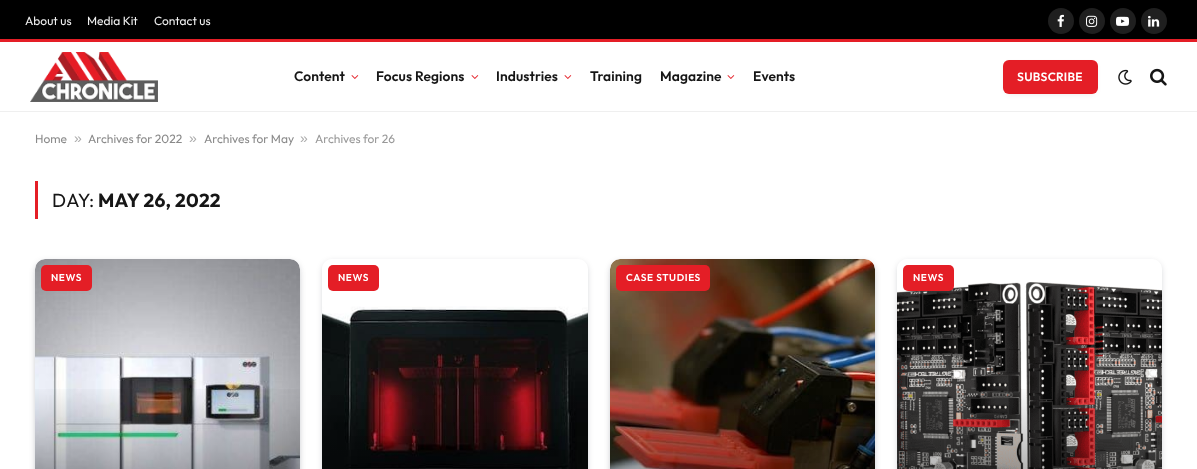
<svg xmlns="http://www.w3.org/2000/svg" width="1197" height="469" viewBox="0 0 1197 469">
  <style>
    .t1 { font: 12px Outfit; fill: #f0f0f0; }
    .t2 { font: 600 13.75px Outfit; letter-spacing: 0.1px; fill: #161616; }
    .t3 { font: 600 12px Outfit; letter-spacing: 0.25px; fill: #fff; }
    .t4 { font: 12px Outfit; fill: #8a8a8a; }
    .t5 { font: 14px Liberation Sans; fill: #adadad; }
    .t6 { font: 12px Outfit; fill: #999; }
    .t7 { font: 19px Outfit; letter-spacing: 0.25px; fill: #161616; }
    .t8 { font: bold 19px Outfit; letter-spacing: 0.25px; fill: #161616; }
    .t9 { font: 600 10px Outfit; letter-spacing: 0.6px; fill: #fff; }
  </style>
  <defs>
    <linearGradient id="g1" gradientUnits="userSpaceOnUse" x1="167" y1="259" x2="168" y2="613"><stop offset="0.35" stop-color="#000" stop-opacity="0"/><stop offset="1" stop-color="#000" stop-opacity="0.77"/></linearGradient>
    <clipPath id="clip1"><path d="M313 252H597V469H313ZM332 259H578C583.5 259 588 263.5 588 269V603C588 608.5 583.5 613 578 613H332C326.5 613 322 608.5 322 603V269C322 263.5 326.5 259 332 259Z" clip-rule="evenodd"/></clipPath>
    <linearGradient id="g2" gradientUnits="userSpaceOnUse" x1="455" y1="259" x2="455" y2="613"><stop offset="0.35" stop-color="#000" stop-opacity="0"/><stop offset="1" stop-color="#000" stop-opacity="0.77"/></linearGradient>
    <linearGradient id="g3" gradientUnits="userSpaceOnUse" x1="743" y1="259" x2="743" y2="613"><stop offset="0.35" stop-color="#000" stop-opacity="0"/><stop offset="1" stop-color="#000" stop-opacity="0.77"/></linearGradient>
    <clipPath id="clip2"><path d="M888 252H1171V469H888ZM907 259H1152C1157.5 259 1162 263.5 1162 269V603C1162 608.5 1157.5 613 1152 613H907C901.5 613 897 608.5 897 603V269C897 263.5 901.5 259 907 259Z" clip-rule="evenodd"/></clipPath>
    <linearGradient id="g4" gradientUnits="userSpaceOnUse" x1="1030" y1="259" x2="1030" y2="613"><stop offset="0.35" stop-color="#000" stop-opacity="0"/><stop offset="1" stop-color="#000" stop-opacity="0.77"/></linearGradient>
  </defs>
  <rect width="100%" height="100%" fill="#fff"/>
  <rect x="0" y="0" width="1197" height="39" fill="#000"/>
  <rect x="0" y="39" width="1197" height="3" fill="#e41e26"/>
  <text x="25" y="25" class="t1">About us</text>
  <text x="87" y="25" class="t1">Media Kit</text>
  <text x="154" y="25" class="t1">Contact us</text>
  <circle cx="1061" cy="21" r="13" fill="#1f1f1f"/>
  <image x="1057" y="14" width="7" height="13" href="images/1.png"/>
  <circle cx="1092" cy="21" r="13" fill="#1f1f1f"/>
  <image x="1086" y="15" width="12" height="12" href="images/2.png"/>
  <circle cx="1123" cy="21" r="13" fill="#1f1f1f"/>
  <image x="1116" y="16" width="13" height="10" href="images/3.png"/>
  <circle cx="1154" cy="21" r="13" fill="#1f1f1f"/>
  <image x="1148" y="15" width="12" height="12" href="images/4.png"/>
  <rect x="0" y="111" width="1197" height="1" fill="#efefef"/>
  <image x="30" y="52" width="128" height="50" href="images/5.png"/>
  <text x="294" y="81" class="t2">Content</text>
  <image x="351" y="75" width="8" height="4" href="images/6.png"/>
  <text x="376" y="81" class="t2">Focus Regions</text>
  <image x="471" y="75" width="8" height="4" href="images/6.png"/>
  <text x="496" y="81" class="t2">Industries</text>
  <image x="564" y="75" width="8" height="4" href="images/6.png"/>
  <text x="590" y="81" class="t2">Training</text>
  <text x="660" y="81" class="t2">Magazine</text>
  <image x="727" y="75" width="8" height="4" href="images/6.png"/>
  <text x="753" y="81" class="t2">Events</text>
  <rect x="1007" y="66" width="87" height="26" rx="2" fill="#00000029" filter="blur(3.5px)"/>
  <rect x="1003" y="60" width="95" height="34" rx="6" fill="#e41e26"/>
  <text x="1017" y="81" class="t3">SUBSCRIBE</text>
  <image x="1118" y="69" width="14" height="16" href="images/7.png"/>
  <image x="1150" y="68" width="17" height="18" href="images/8.png"/>
  <text x="35" y="143" class="t4">Home</text>
  <text x="74" y="143" class="t5">»</text>
  <text x="88" y="143" class="t4">Archives for 2022</text>
  <text x="189" y="143" class="t5">»</text>
  <text x="204" y="143" class="t4">Archives for May</text>
  <text x="300" y="143" class="t5">»</text>
  <text x="315" y="143" class="t6">Archives for 26</text>
  <rect x="35" y="181" width="3" height="38" fill="#e41e26"/>
  <text x="52" y="207" class="t7">DAY:</text>
  <text x="98" y="207" class="t8">MAY 26, 2022</text>
  <rect x="41" y="271" width="253" height="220" rx="4" fill="#070a1933" filter="blur(6px)"/>
  <rect x="36" y="262" width="263" height="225" rx="9" fill="#070a1933" filter="blur(3px)"/>
  <image x="35" y="259" width="265" height="210" href="images/9.png"/>
  <rect x="41" y="265" width="51" height="26" rx="5" fill="#e41e26"/>
  <text x="51" y="281" class="t9">NEWS</text>
  <rect x="35" y="389" width="265" height="80" fill="url(#g1)"/>
  <g clip-path="url(#clip1)">
    <rect x="323" y="262" width="264" height="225" rx="9" fill="#070a1933" filter="blur(3px)"/>
  </g>
  <rect x="328" y="265" width="51" height="26" rx="5" fill="#e41e26"/>
  <text x="338" y="281" class="t9">NEWS</text>
  <image x="322" y="306" width="266" height="163" href="images/10.png"/>
  <rect x="322" y="389" width="255" height="80" fill="url(#g2)"/>
  <rect x="616" y="271" width="253" height="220" rx="4" fill="#070a1933" filter="blur(6px)"/>
  <rect x="611" y="262" width="263" height="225" rx="9" fill="#070a1933" filter="blur(3px)"/>
  <image x="610" y="259" width="265" height="210" href="images/11.png"/>
  <rect x="616" y="265" width="94" height="26" rx="5" fill="#e41e26"/>
  <text x="626" y="281" class="t9">CASE STUDIES</text>
  <rect x="610" y="389" width="265" height="80" fill="url(#g3)"/>
  <g clip-path="url(#clip2)">
    <rect x="898" y="262" width="263" height="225" rx="9" fill="#070a1933" filter="blur(3px)"/>
  </g>
  <image x="897" y="282" width="265" height="187" href="images/12.png"/>
  <rect x="903" y="265" width="51" height="26" rx="5" fill="#e41e26"/>
  <text x="913" y="281" class="t9">NEWS</text>
  <rect x="897" y="389" width="265" height="80" fill="url(#g4)"/>
</svg>
